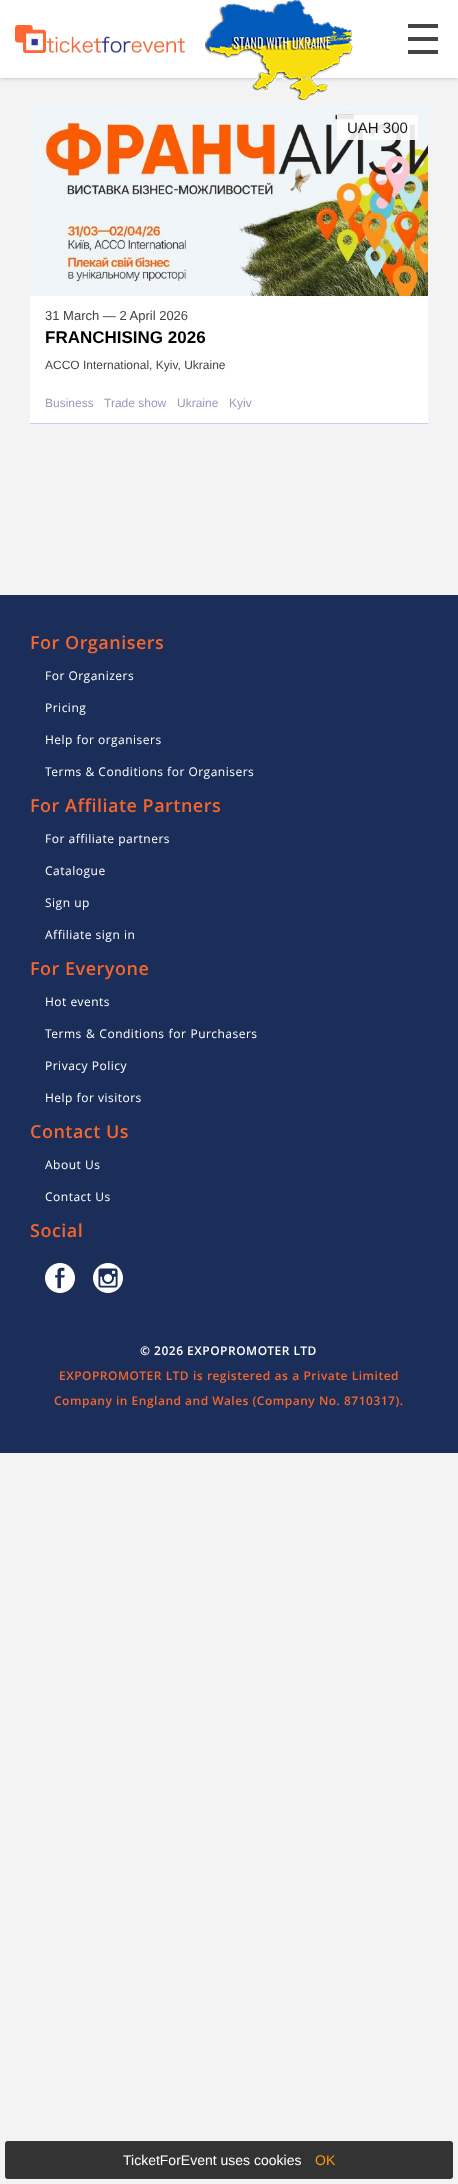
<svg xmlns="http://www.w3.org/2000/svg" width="458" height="2184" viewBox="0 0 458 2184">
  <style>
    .t1 { font: 15px Liberation Sans; fill: #191919; }
    .t2 { font: 13px Liberation Sans; fill: #444; }
    .t3 { font: bold 17px Liberation Sans; fill: #000; }
    .t4 { font: 12px Liberation Sans; fill: #444; }
    .t5 { font: 12px Liberation Sans; fill: #99b; }
    .t6 { font: 600 18px Open Sans; letter-spacing: 0.5px; fill: #f3672f; }
    .t7 { font: 12px Open Sans; letter-spacing: 0.5px; fill: #fff; }
    .t8 { font: 600 12px Open Sans; letter-spacing: 0.5px; fill: #fff; }
    .t9 { font: 600 12px Open Sans; letter-spacing: 0.5px; fill: #f3672f; }
    .t10 { font: 14px Liberation Sans; fill: #fff; }
    .t11 { font: 14px Liberation Sans; fill: #f90; }
  </style>
  <rect width="100%" height="100%" fill="#f3f3f3"/>
  <rect x="0" y="0" width="458" height="78" fill="#b5b1cd" filter="blur(2.5px)"/>
  <rect x="0" y="0" width="458" height="78" fill="#fff"/>
  <image x="15" y="25" width="170" height="28" href="images/1.png"/>
  <image x="205" y="0" width="148" height="100" href="images/2.png"/>
  <rect x="408" y="24" width="30" height="4" fill="#444"/>
  <rect x="408" y="37" width="30" height="4" fill="#444"/>
  <rect x="408" y="50" width="30" height="4" fill="#444"/>
  <rect x="30" y="296" width="398" height="127" fill="#fff"/>
  <rect x="30" y="423" width="398" height="1" fill="#cce"/>
  <image x="30" y="105" width="398" height="191" href="images/3.png"/>
  <rect x="337" y="115" width="81" height="25" fill="#ffffffe6"/>
  <text x="347" y="133" class="t1">UAH 300</text>
  <text x="45" y="320" class="t2">31 March — 2 April 2026</text>
  <text x="45" y="343" class="t3">FRANCHISING 2026</text>
  <text x="45" y="369" class="t4">ACCO International, Kyiv, Ukraine</text>
  <text x="45" y="407" class="t5">Business</text>
  <text x="104" y="407" class="t5">Trade show</text>
  <text x="177" y="407" class="t5">Ukraine</text>
  <text x="229" y="407" class="t5">Kyiv</text>
  <rect x="0" y="595" width="458" height="858" fill="#1b2e59"/>
  <text x="30" y="649" class="t6">For Organisers</text>
  <text x="45" y="680" class="t7">For Organizers</text>
  <text x="45" y="712" class="t7">Pricing</text>
  <text x="45" y="744" class="t7">Help for organisers</text>
  <text x="45" y="776" class="t7">Terms &amp; Conditions for Organisers</text>
  <text x="30" y="812" class="t6">For Affiliate Partners</text>
  <text x="45" y="843" class="t7">For affiliate partners</text>
  <text x="45" y="875" class="t7">Catalogue</text>
  <text x="45" y="907" class="t7">Sign up</text>
  <text x="45" y="939" class="t7">Affiliate sign in</text>
  <text x="30" y="975" class="t6">For Everyone</text>
  <text x="45" y="1006" class="t7">Hot events</text>
  <text x="45" y="1038" word-spacing="0.5" class="t7">Terms &amp; Conditions for Purchasers</text>
  <text x="45" y="1070" class="t7">Privacy Policy</text>
  <text x="45" y="1102" class="t7">Help for visitors</text>
  <text x="30" y="1138" class="t6">Contact Us</text>
  <text x="45" y="1169" class="t7">About Us</text>
  <text x="45" y="1201" class="t7">Contact Us</text>
  <text x="30" y="1237" class="t6">Social</text>
  <image x="45" y="1263" width="30" height="30" href="images/4.png"/>
  <image x="93" y="1263" width="30" height="30" href="images/5.png"/>
  <text x="140" y="1355" class="t8">© 2026 EXPOPROMOTER LTD</text>
  <text x="59" y="1380" word-spacing="0.25" class="t9">EXPOPROMOTER LTD is registered as a Private Limited</text>
  <text x="54" y="1405" class="t9">Company in England and Wales (Company No. 8710317).</text>
  <rect x="5" y="2141" width="448" height="38" rx="3" fill="#333"/>
  <text x="123" y="2165" class="t10">TicketForEvent uses cookies</text>
  <text x="315" y="2165" class="t11">OK</text>
</svg>
